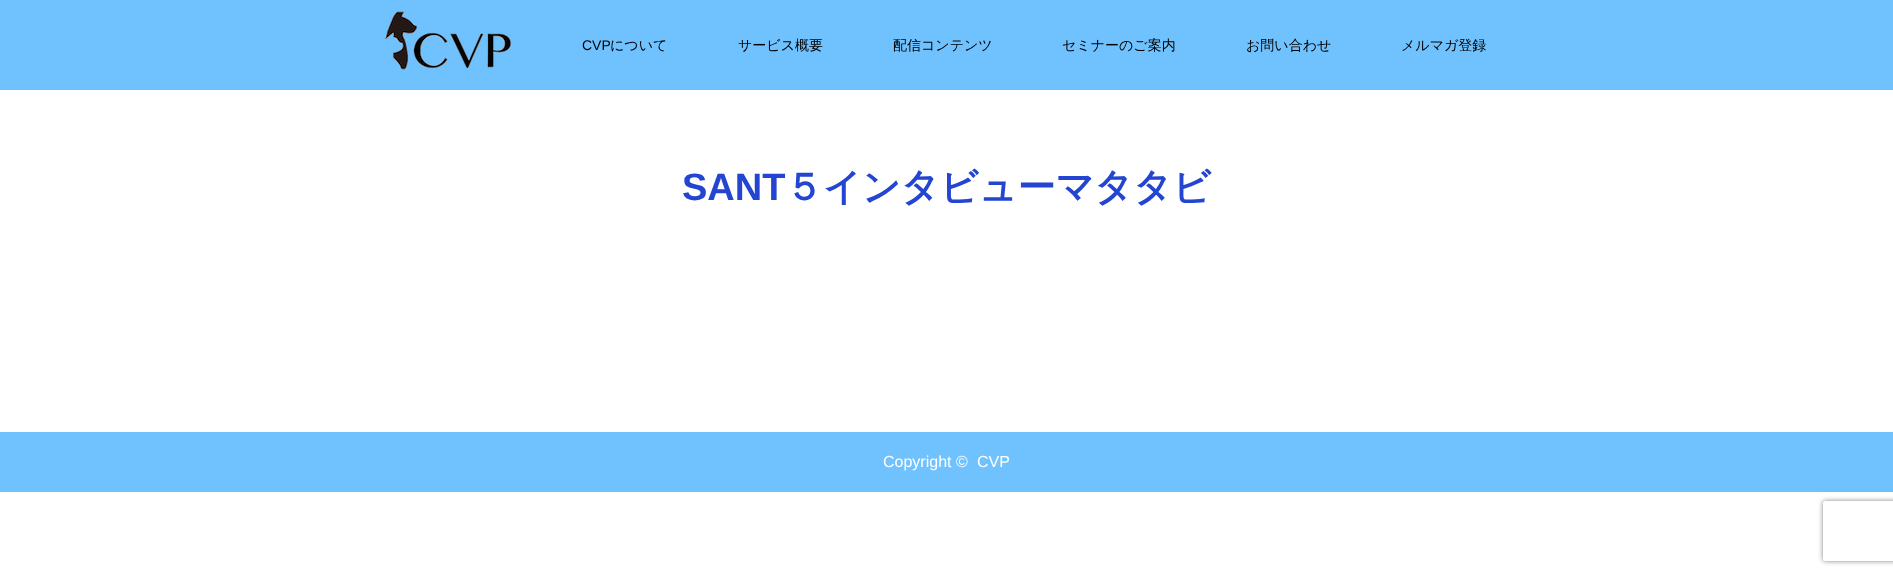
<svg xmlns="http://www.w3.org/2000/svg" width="1893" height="575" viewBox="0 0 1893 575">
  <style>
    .t1 { font: 14px Liberation Sans; fill: #000; }
    .t2 { font: 500 14px WenQuanYi Zen Hei; fill: #000; }
    .t3 { font: bold 38px Liberation Sans; fill: #2345d1; }
    .t4 { font: bold 38px WenQuanYi Zen Hei; fill: #2345d1; }
    .t5 { font: 16px Liberation Sans; fill: #fff; }
  </style>
  <defs>
    <clipPath id="clip1"><path d="M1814 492H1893V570H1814ZM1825 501H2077C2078 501 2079 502 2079 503V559C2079 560 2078 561 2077 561H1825C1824 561 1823 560 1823 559V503C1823 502 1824 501 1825 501Z" clip-rule="evenodd"/></clipPath>
  </defs>
  <rect width="100%" height="100%" fill="#fff"/>
  <rect x="0" y="0" width="1893" height="90" fill="#70c2ff"/>
  <image x="385" y="11" width="126" height="59" href="images/1.png"/>
  <text x="582" y="50" class="t1">CVP</text>
  <text x="610" y="50" class="t2">について</text>
  <text x="738" y="50" class="t2">サービス概要</text>
  <text x="893" y="50" class="t2">配信コンテンツ</text>
  <text x="1062" y="50" class="t2">セミナーのご案内</text>
  <text x="1246" y="50" class="t2">お問い合わせ</text>
  <text x="1401" y="50" class="t2">メルマガ登録</text>
  <text x="682" y="200" class="t3">SANT</text>
  <text x="785" y="200" class="t4">５インタビューマタタビ</text>
  <rect x="0" y="432" width="1893" height="60" fill="#70c2ff"/>
  <text x="883" y="467" class="t5">Copyright ©</text>
  <text x="977" y="467" class="t5">CVP</text>
  <g clip-path="url(#clip1)">
    <rect x="1823" y="501" width="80" height="60" rx="2" fill="#808080" filter="blur(2.5px)"/>
  </g>
</svg>
